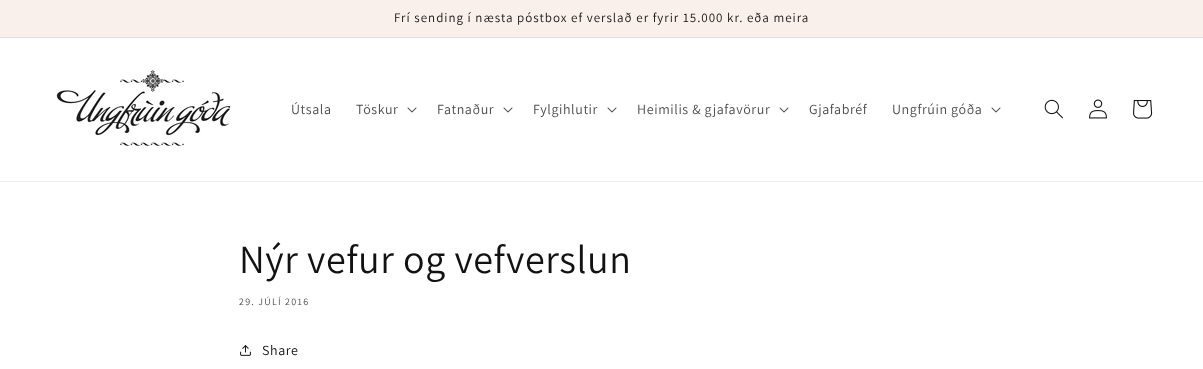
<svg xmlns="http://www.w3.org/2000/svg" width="1203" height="369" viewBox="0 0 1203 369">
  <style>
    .t1 { font: 13px Assistant; letter-spacing: 1px; fill: #121212; }
    .t2 { font: 14px Assistant; letter-spacing: 0.6px; fill: #4d4d4d; }
    .t3 { font: 40px Assistant; letter-spacing: 0.6px; fill: #121212; }
    .t4 { font: 10px Assistant; letter-spacing: 1.25px; fill: #4d4d4d; }
    .t5 { font: 14px Assistant; letter-spacing: 0.6px; fill: #121212; }
  </style>
  <rect width="100%" height="100%" fill="#fff"/>
  <rect x="0" y="0" width="1203" height="37" fill="#f9f0ec"/>
  <rect x="0" y="37" width="1203" height="1" fill="#e7dedb"/>
  <text x="394" y="22" class="t1">Frí sending í næsta póstbox ef verslað er fyrir 15.000 kr. eða meira</text>
  <rect x="0" y="181" width="1203" height="1" fill="#ececec"/>
  <image x="56" y="69" width="175" height="80" href="images/1.png"/>
  <text x="291" y="114" class="t2">Útsala</text>
  <text x="356" y="114" class="t2">Töskur</text>
  <image x="407" y="107" width="10" height="6" href="images/2.png"/>
  <text x="437" y="114" class="t2">Fatnaður</text>
  <image x="503" y="107" width="10" height="6" href="images/2.png"/>
  <text x="533" y="114" class="t2">Fylgihlutir</text>
  <image x="607" y="107" width="10" height="6" href="images/2.png"/>
  <text x="637" y="114" class="t2">Heimilis &amp; gjafavörur</text>
  <image x="779" y="107" width="10" height="6" href="images/2.png"/>
  <text x="809" y="114" class="t2">Gjafabréf</text>
  <text x="892" y="114" class="t2">Ungfrúin góða</text>
  <image x="991" y="107" width="10" height="6" href="images/2.png"/>
  <image x="1044" y="99" width="19" height="20" href="images/3.png"/>
  <image x="1089" y="99" width="18" height="20" href="images/4.png"/>
  <image x="1133" y="100" width="20" height="19" href="images/5.png"/>
  <text x="239" y="273" class="t3">Nýr vefur og vefverslun</text>
  <text x="239" y="305" class="t4">29. JÚLÍ 2016</text>
  <image x="240" y="345" width="11" height="11" href="images/6.png"/>
  <text x="262" y="355" class="t5">Share</text>
</svg>
